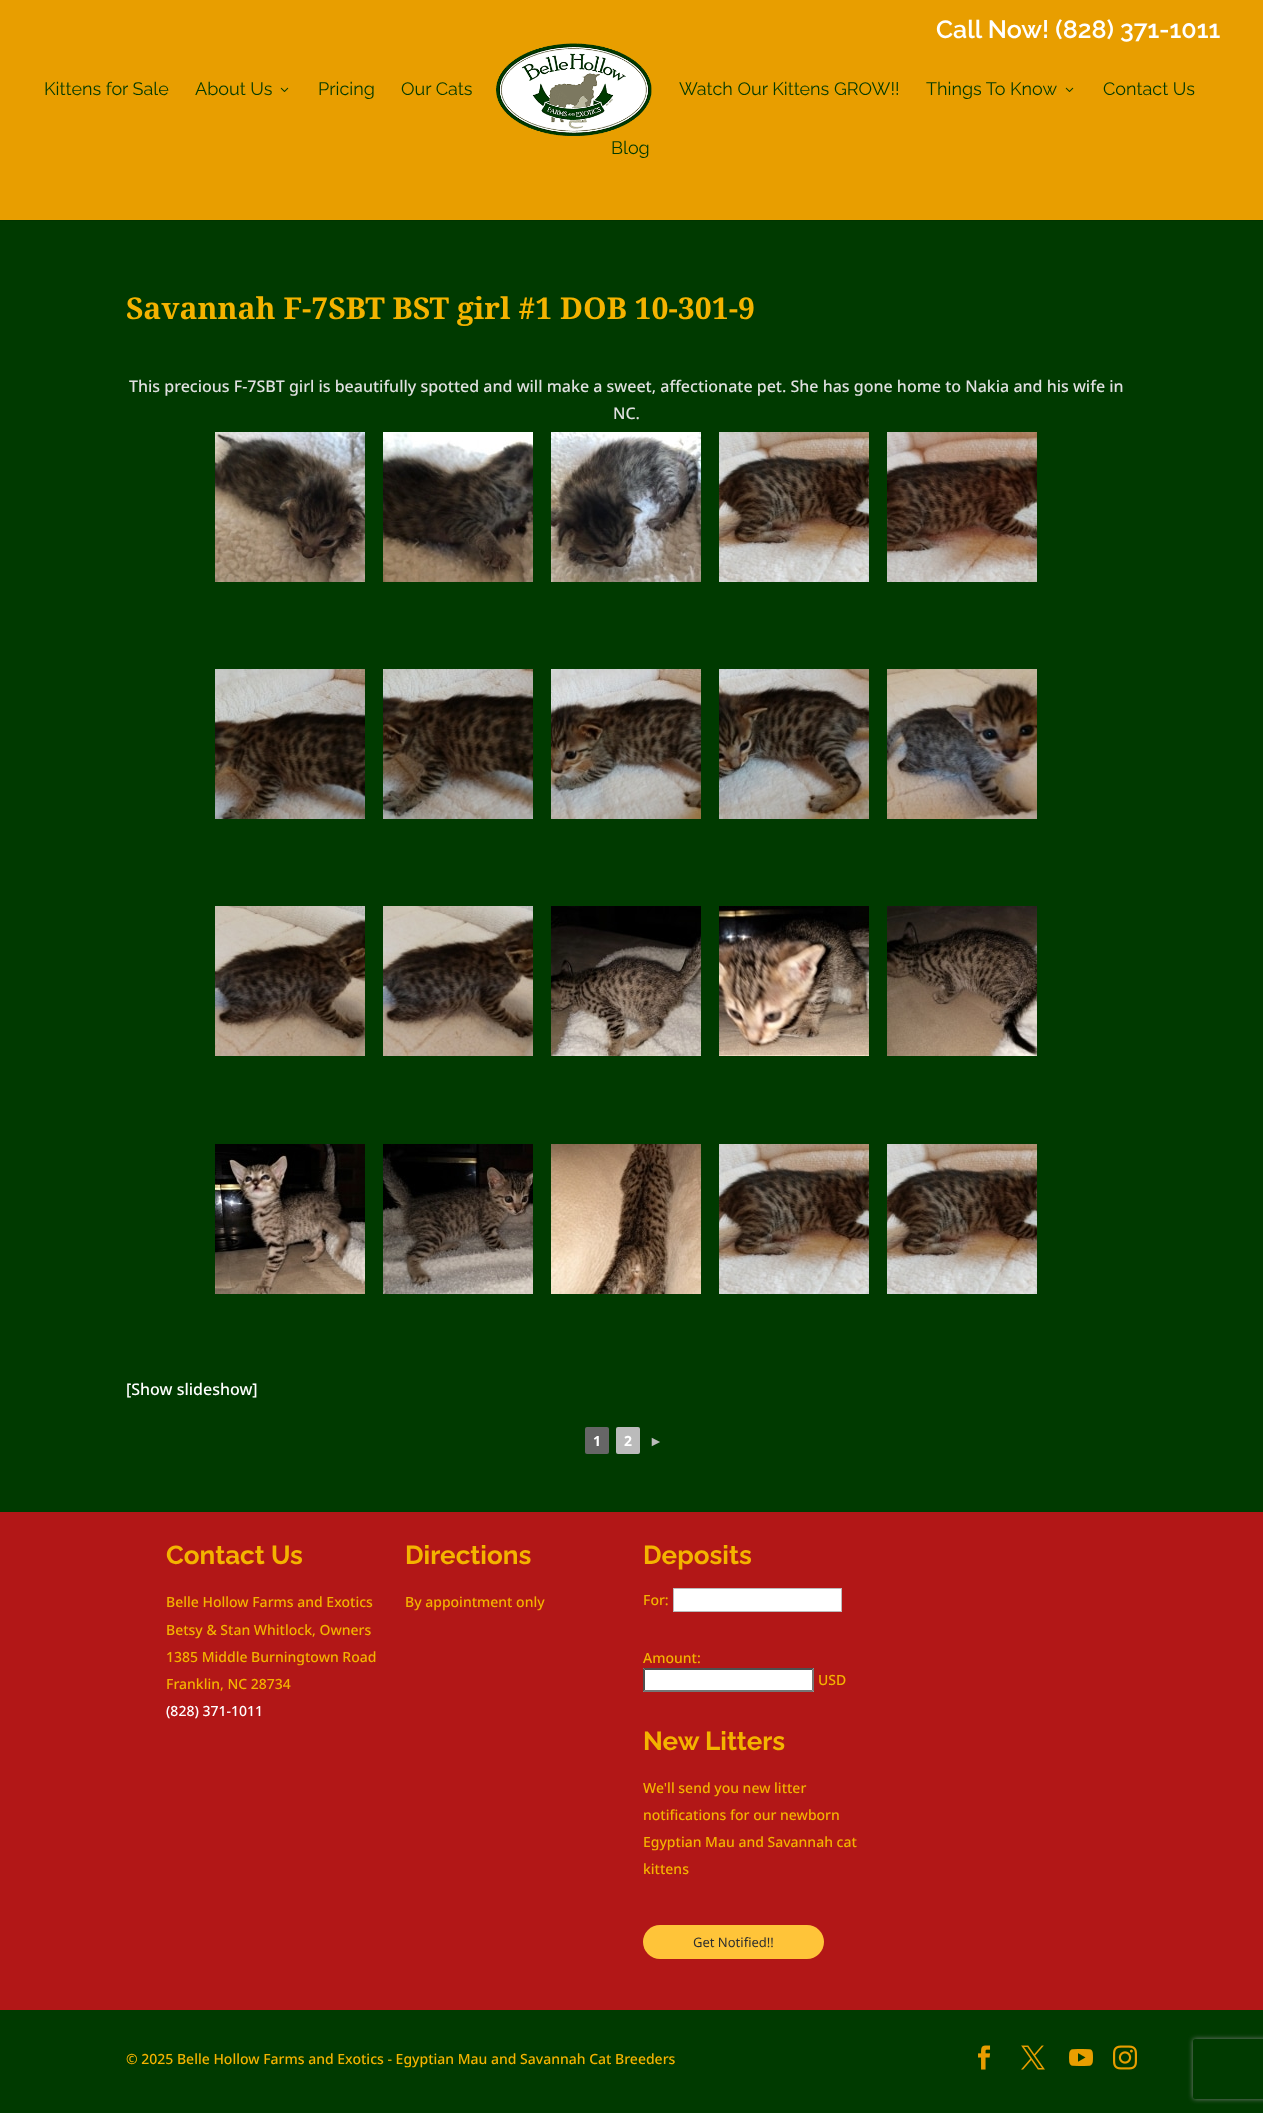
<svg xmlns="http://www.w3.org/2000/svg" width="1263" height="2113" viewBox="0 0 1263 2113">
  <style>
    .t1 { font: 600 25px Raleway; fill: #fff; }
    .t2 { font: 18px Raleway; fill: #003a00; }
    .t3 { font: bold 30px Noto Serif; fill: #f4b300; }
    .t4 { font: 500 16px Noto Sans; fill: #e0e0e0; }
    .t5 { font: 500 16px Noto Sans; fill: #fff; }
    .t6 { font: bold 14px Noto Sans; fill: #fff; }
    .t7 { font: bold 14px Liberation Sans; fill: #bbb; }
    .t8 { font: bold 26px Raleway; fill: #f4b300; }
    .t9 { font: 500 14px Noto Sans; fill: #f4b300; }
    .t10 { font: 500 14px Noto Sans; fill: #fff; }
    .t11 { font: 13px Noto Sans; fill: #2c2e2f; }
  </style>
  <defs>
    <clipPath id="clip1"><path d="M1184 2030H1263V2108H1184ZM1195 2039H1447C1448 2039 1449 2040 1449 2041V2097C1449 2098 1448 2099 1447 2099H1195C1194 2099 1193 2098 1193 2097V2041C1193 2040 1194 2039 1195 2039Z" clip-rule="evenodd"/></clipPath>
  </defs>
  <rect width="100%" height="100%" fill="#003a00"/>
  <rect x="0" y="0" width="1263" height="220" fill="#e89e00"/>
  <text x="936" y="38" class="t1">Call Now! (828) 371-1011</text>
  <rect x="0" y="220" width="1263" height="1" fill="#003400"/>
  <text x="44" y="95" class="t2">Kittens for Sale</text>
  <text x="195" y="95" class="t2">About Us</text>
  <image x="280" y="87" width="9" height="5" href="images/1.png"/>
  <text x="318" y="95" class="t2">Pricing</text>
  <text x="401" y="95" class="t2">Our Cats</text>
  <image x="495" y="43" width="157" height="93" href="images/2.png"/>
  <text x="679" y="95" class="t2">Watch Our Kittens GROW!!</text>
  <text x="926" y="95" class="t2">Things To Know</text>
  <image x="1065" y="87" width="9" height="5" href="images/1.png"/>
  <text x="1103" y="95" class="t2">Contact Us</text>
  <text x="611" y="154" class="t2">Blog</text>
  <text x="126" y="319" class="t3">Savannah F-7SBT BST girl #1 DOB 10-301-9</text>
  <text x="129" y="392" class="t4">This precious F-7SBT girl is beautifully spotted and will make a sweet, affectionate pet. She has gone home to Nakia and his wife in</text>
  <text x="613" y="419" class="t4">NC.</text>
  <image x="215" y="432" width="150" height="150" href="images/3.png"/>
  <image x="383" y="432" width="150" height="150" href="images/4.png"/>
  <image x="551" y="432" width="150" height="150" href="images/5.png"/>
  <image x="719" y="432" width="150" height="150" href="images/6.png"/>
  <image x="887" y="432" width="150" height="150" href="images/7.png"/>
  <image x="215" y="669" width="150" height="150" href="images/8.png"/>
  <image x="383" y="669" width="150" height="150" href="images/9.png"/>
  <image x="551" y="669" width="150" height="150" href="images/10.png"/>
  <image x="719" y="669" width="150" height="150" href="images/11.png"/>
  <image x="887" y="669" width="150" height="150" href="images/12.png"/>
  <image x="215" y="906" width="150" height="150" href="images/13.png"/>
  <image x="383" y="906" width="150" height="150" href="images/14.png"/>
  <image x="551" y="906" width="150" height="150" href="images/15.png"/>
  <image x="719" y="906" width="150" height="150" href="images/16.png"/>
  <image x="887" y="906" width="150" height="150" href="images/17.png"/>
  <image x="215" y="1144" width="150" height="150" href="images/18.png"/>
  <image x="383" y="1144" width="150" height="150" href="images/19.png"/>
  <image x="551" y="1144" width="150" height="150" href="images/20.png"/>
  <image x="719" y="1144" width="150" height="150" href="images/6.png"/>
  <image x="887" y="1144" width="150" height="150" href="images/6.png"/>
  <text x="126" y="1395" class="t5">[Show slideshow]</text>
  <rect x="585" y="1427" width="24" height="27" rx="2" fill="#666"/>
  <text x="593" y="1446" class="t6">1</text>
  <rect x="616" y="1427" width="24" height="27" rx="2" fill="#bbb"/>
  <text x="624" y="1446" class="t6">2</text>
  <text x="649" y="1446" class="t7">►</text>
  <rect x="0" y="1512" width="1263" height="498" fill="#b21717"/>
  <text x="166" y="1564" class="t8">Contact Us</text>
  <text x="166" y="1607" class="t9">Belle Hollow Farms and Exotics</text>
  <text x="166" y="1635" class="t9">Betsy &amp; Stan Whitlock, Owners</text>
  <text x="166" y="1662" class="t9">1385 Middle Burningtown Road</text>
  <text x="166" y="1689" class="t9">Franklin, NC 28734</text>
  <text x="166" y="1716" class="t10">(828) 371-1011</text>
  <text x="405" y="1564" class="t8">Directions</text>
  <text x="405" y="1607" class="t9">By appointment only</text>
  <text x="643" y="1564" class="t8">Deposits</text>
  <text x="643" y="1605" class="t9">For:</text>
  <rect x="673.5" y="1588.5" width="168" height="23" fill="#fff" stroke="#bbb"/>
  <text x="643" y="1663" class="t9">Amount:</text>
  <rect x="643" y="1668" width="171" height="24" fill="#fff"/>
  <path d="M643 1668H814L812 1670H645Z" fill="#4f4f4f"/>
  <path d="M814 1668V1692L812 1690V1670Z" fill="#767676"/>
  <path d="M814 1692H643L645 1690H812Z" fill="#767676"/>
  <path d="M643 1692V1668L645 1670V1690Z" fill="#4f4f4f"/>
  <text x="818" y="1685" class="t9">USD</text>
  <text x="643" y="1750" class="t8">New Litters</text>
  <text x="643" y="1793" class="t9">We'll send you new litter</text>
  <text x="643" y="1820" class="t9">notifications for our newborn</text>
  <text x="643" y="1847" class="t9">Egyptian Mau and Savannah cat</text>
  <text x="643" y="1874" class="t9">kittens</text>
  <rect x="643" y="1925" width="181" height="34" rx="17" fill="#ffc439"/>
  <text x="693" y="1947" class="t11">Get Notified!!</text>
  <text x="126" y="2064" class="t9">© 2025 Belle Hollow Farms and Exotics - Egyptian Mau and Savannah Cat Breeders</text>
  <image x="978" y="2045" width="13" height="25" href="images/21.png"/>
  <image x="1021" y="2045" width="24" height="25" href="images/22.png"/>
  <image x="1069" y="2049" width="24" height="17" href="images/23.png"/>
  <image x="1113" y="2045" width="24" height="25" href="images/24.png"/>
  <g clip-path="url(#clip1)">
    <rect x="1193" y="2039" width="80" height="60" rx="2" fill="#808080" filter="blur(2.5px)"/>
  </g>
</svg>
